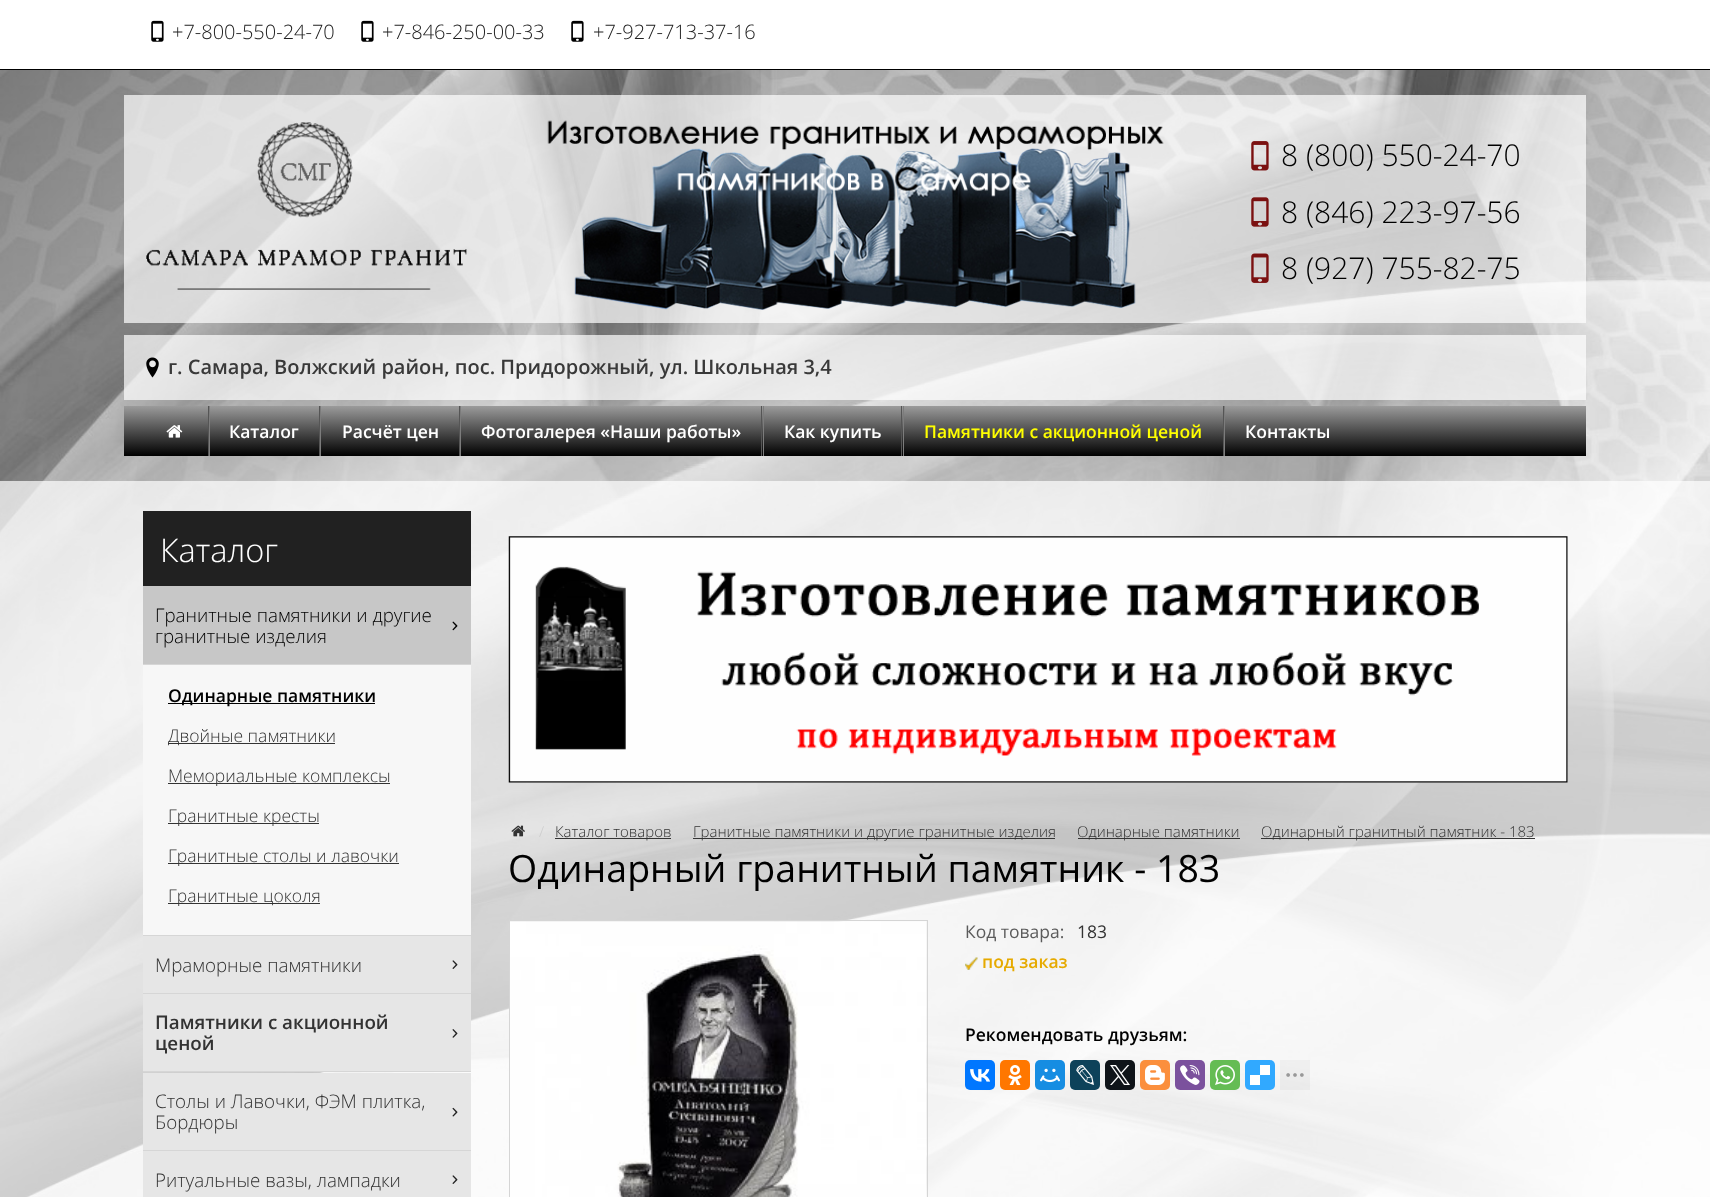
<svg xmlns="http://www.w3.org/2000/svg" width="1710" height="1197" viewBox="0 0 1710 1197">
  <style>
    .t1 { font: 300 20px Open Sans; fill: #212121; }
    .t2 { font: 300 30px Open Sans; fill: #000; }
    .t3 { font: 600 20px Open Sans; fill: #393939; }
    .t4 { font: 600 17.5px Open Sans; fill: #fff; }
    .t5 { font: 600 17.5px Open Sans; fill: #ff0; }
    .t6 { font: 300 32.5px Open Sans; fill: #fff; }
    .t7 { font: 300 18.75px Open Sans; fill: #000; }
    .t8 { font: 600 17.5px Open Sans; fill: #000; }
    .t9 { font: 300 17.5px Open Sans; fill: #333; }
    .t10 { font: 300 18.75px Open Sans; fill: #333; }
    .t11 { font: 600 18.75px Open Sans; fill: #333; }
    .t12 { font: 300 15px Open Sans; fill: #ccc; }
    .t13 { font: 300 15px Open Sans; fill: #333; }
    .t14 { font: 37.5px Open Sans; fill: #000; }
    .t15 { font: 17.5px Open Sans; fill: #5b5b5b; }
    .t16 { font: 17.5px Open Sans; fill: #333; }
    .t17 { font: 600 17.5px Open Sans; fill: #e6aa00; }
  </style>
  <defs>
    <linearGradient id="g1" gradientUnits="userSpaceOnUse" x1="855" y1="406" x2="855" y2="456"><stop offset="0" stop-color="#9b9b9b"/><stop offset="1" stop-color="#000"/></linearGradient>
  </defs>
  <rect width="100%" height="100%" fill="#fff"/>
  <image x="0" y="70" width="1710" height="1127" href="images/1.png"/>
  <rect x="0" y="69" width="1710" height="1" fill="#000"/>
  <image x="151" y="20" width="13" height="22" href="images/2.png"/>
  <text x="172" y="39" class="t1">+7-800-550-24-70</text>
  <image x="361" y="20" width="13" height="22" href="images/2.png"/>
  <text x="382" y="39" class="t1">+7-846-250-00-33</text>
  <image x="571" y="20" width="13" height="22" href="images/2.png"/>
  <text x="593" y="39" class="t1">+7-927-713-37-16</text>
  <rect x="124" y="95" width="1462" height="228" fill="#ffffffb3"/>
  <image x="146" y="122" width="321" height="168" href="images/3.png"/>
  <image x="547" y="120" width="617" height="190" href="images/4.png"/>
  <image x="1251" y="141" width="18" height="30" href="images/5.png"/>
  <text x="1281" y="166" class="t2">8 (800) 550-24-70</text>
  <image x="1251" y="197" width="18" height="30" href="images/6.png"/>
  <text x="1281" y="223" class="t2">8 (846) 223-97-56</text>
  <image x="1251" y="253" width="18" height="30" href="images/7.png"/>
  <text x="1281" y="279" class="t2">8 (927) 755-82-75</text>
  <rect x="124" y="335" width="1462" height="65" fill="#ffffffb3"/>
  <image x="146" y="357" width="13" height="21" href="images/8.png"/>
  <text x="168" y="374" class="t3">г. Самара, Волжский район, пос. Придорожный, ул. Школьная 3,4</text>
  <rect x="124" y="406" width="1462" height="50" fill="url(#g1)"/>
  <image x="166" y="425" width="17" height="13" href="images/9.png"/>
  <rect x="208" y="406" width="1" height="50" fill="#555"/>
  <rect x="209" y="406" width="1" height="50" fill="#7c7c7c"/>
  <text x="229" y="438" class="t4">Каталог</text>
  <rect x="319" y="406" width="1" height="50" fill="#555"/>
  <rect x="320" y="406" width="1" height="50" fill="#7c7c7c"/>
  <text x="342" y="438" class="t4">Расчёт цен</text>
  <rect x="459" y="406" width="1" height="50" fill="#555"/>
  <rect x="460" y="406" width="1" height="50" fill="#7c7c7c"/>
  <text x="481" y="438" class="t4">Фотогалерея «Наши работы»</text>
  <rect x="761" y="406" width="1" height="50" fill="#555"/>
  <rect x="763" y="406" width="1" height="50" fill="#7c7c7c"/>
  <text x="784" y="438" class="t4">Как купить</text>
  <rect x="901" y="406" width="1" height="50" fill="#555"/>
  <rect x="903" y="406" width="1" height="50" fill="#7c7c7c"/>
  <text x="924" y="438" class="t5">Памятники с акционной ценой</text>
  <rect x="1223" y="406" width="1" height="50" fill="#555"/>
  <rect x="1224" y="406" width="1" height="50" fill="#7c7c7c"/>
  <text x="1245" y="438" class="t4">Контакты</text>
  <rect x="0" y="481" width="1710" height="716" fill="#ffffffb3"/>
  <rect x="143" y="511" width="328" height="75" fill="#212121"/>
  <text x="160" y="562" class="t6">Каталог</text>
  <rect x="143" y="935" width="328" height="1" fill="#d6d6d6"/>
  <rect x="143" y="586" width="328" height="78" fill="#c7c7c7"/>
  <text x="155" y="622" class="t7">Гранитные памятники и другие</text>
  <image x="452" y="621" width="6" height="10" href="images/10.png"/>
  <text x="155" y="643" class="t7">гранитные изделия</text>
  <rect x="143" y="665" width="328" height="270" fill="#f7f7f7"/>
  <rect x="143" y="664" width="328" height="1" fill="#d6d6d6"/>
  <rect x="168" y="703" width="207" height="1" fill="#000"/>
  <text x="168" y="702" class="t8">Одинарные памятники</text>
  <rect x="168" y="743" width="167" height="1" fill="#333"/>
  <text x="168" y="742" class="t9">Двойные памятники</text>
  <rect x="168" y="783" width="222" height="1" fill="#333"/>
  <text x="168" y="782" class="t9">Мемориальные комплексы</text>
  <rect x="168" y="823" width="151" height="1" fill="#333"/>
  <text x="168" y="822" class="t9">Гранитные кресты</text>
  <rect x="168" y="863" width="231" height="1" fill="#333"/>
  <text x="168" y="862" class="t9">Гранитные столы и лавочки</text>
  <rect x="168" y="903" width="152" height="1" fill="#333"/>
  <text x="168" y="902" class="t9">Гранитные цоколя</text>
  <rect x="143" y="993" width="328" height="1" fill="#d6d6d6"/>
  <rect x="143" y="936" width="328" height="57" fill="#e6e6e6"/>
  <text x="155" y="972" class="t10">Мраморные памятники</text>
  <image x="452" y="960" width="6" height="9" href="images/11.png"/>
  <rect x="143" y="1071" width="328" height="1" fill="#d6d6d6"/>
  <rect x="143" y="994" width="328" height="77" fill="#e6e6e6"/>
  <text x="155" y="1029" class="t11">Памятники с акционной</text>
  <image x="452" y="1029" width="6" height="9" href="images/12.png"/>
  <text x="155" y="1050" class="t11">ценой</text>
  <rect x="143" y="1150" width="328" height="1" fill="#d6d6d6"/>
  <rect x="143" y="1073" width="328" height="77" fill="#e6e6e6"/>
  <text x="155" y="1108" class="t10">Столы и Лавочки, ФЭМ плитка,</text>
  <image x="452" y="1107" width="6" height="10" href="images/13.png"/>
  <text x="155" y="1129" class="t10">Бордюры</text>
  <rect x="143" y="1151" width="328" height="46" fill="#e6e6e6"/>
  <text x="155" y="1187" class="t10">Ритуальные вазы, лампадки</text>
  <image x="452" y="1175" width="6" height="9" href="images/11.png"/>
  <image x="508" y="536" width="1060" height="247" href="images/14.png"/>
  <image x="511" y="825" width="14" height="12" href="images/15.png"/>
  <text x="539" y="837" class="t12">/</text>
  <rect x="555" y="838" width="116" height="1" fill="#333"/>
  <text x="555" y="837" class="t13">Каталог товаров</text>
  <rect x="693" y="838" width="362" height="1" fill="#333"/>
  <text x="693" y="837" class="t13">Гранитные памятники и другие гранитные изделия</text>
  <rect x="1078" y="838" width="162" height="1" fill="#333"/>
  <text x="1077" y="837" class="t13">Одинарные памятники</text>
  <rect x="1261" y="838" width="274" height="1" fill="#333"/>
  <text x="1261" y="837" class="t13">Одинарный гранитный памятник - 183</text>
  <text x="508" y="882" class="t14">Одинарный гранитный памятник - 183</text>
  <rect x="509.5" y="920.5" width="418" height="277" fill="none" stroke="#d5d5d5"/>
  <image x="510" y="921" width="416" height="276" href="images/16.png"/>
  <text x="965" y="938" class="t15">Код товара:</text>
  <text x="1077" y="938" class="t16">183</text>
  <image x="965" y="957" width="13" height="13" href="images/17.png"/>
  <text x="982" y="968" class="t17">под заказ</text>
  <text x="965" y="1041" class="t8">Рекомендовать друзьям:</text>
  <rect x="965" y="1060" width="30" height="30" rx="5" fill="#07f"/>
  <image x="970" y="1069" width="20" height="13" href="images/18.png"/>
  <rect x="1000" y="1060" width="30" height="30" rx="5" fill="#f70"/>
  <image x="1008" y="1065" width="14" height="20" href="images/19.png"/>
  <rect x="1035" y="1060" width="30" height="30" rx="5" fill="#168de2"/>
  <image x="1040" y="1068" width="20" height="15" href="images/20.png"/>
  <rect x="1070" y="1060" width="30" height="30" rx="5" fill="#0d425a"/>
  <image x="1076" y="1065" width="18" height="20" href="images/21.png"/>
  <rect x="1105" y="1060" width="30" height="30" rx="5" fill="#0f1419"/>
  <image x="1110" y="1065" width="20" height="20" href="images/22.png"/>
  <rect x="1140" y="1060" width="30" height="30" rx="5" fill="#fb8f3d"/>
  <image x="1145" y="1065" width="20" height="20" href="images/23.png"/>
  <rect x="1175" y="1060" width="30" height="30" rx="5" fill="#7b519d"/>
  <image x="1180" y="1065" width="20" height="20" href="images/24.png"/>
  <rect x="1210" y="1060" width="30" height="30" rx="5" fill="#65bc54"/>
  <image x="1215" y="1065" width="20" height="20" href="images/25.png"/>
  <rect x="1245" y="1060" width="30" height="30" rx="5" fill="#31a9ff"/>
  <image x="1250" y="1065" width="20" height="20" href="images/26.png"/>
  <rect x="1280" y="1060" width="30" height="30" fill="#00000008"/>
  <image x="1286" y="1073" width="18" height="4" href="images/27.png"/>
</svg>
